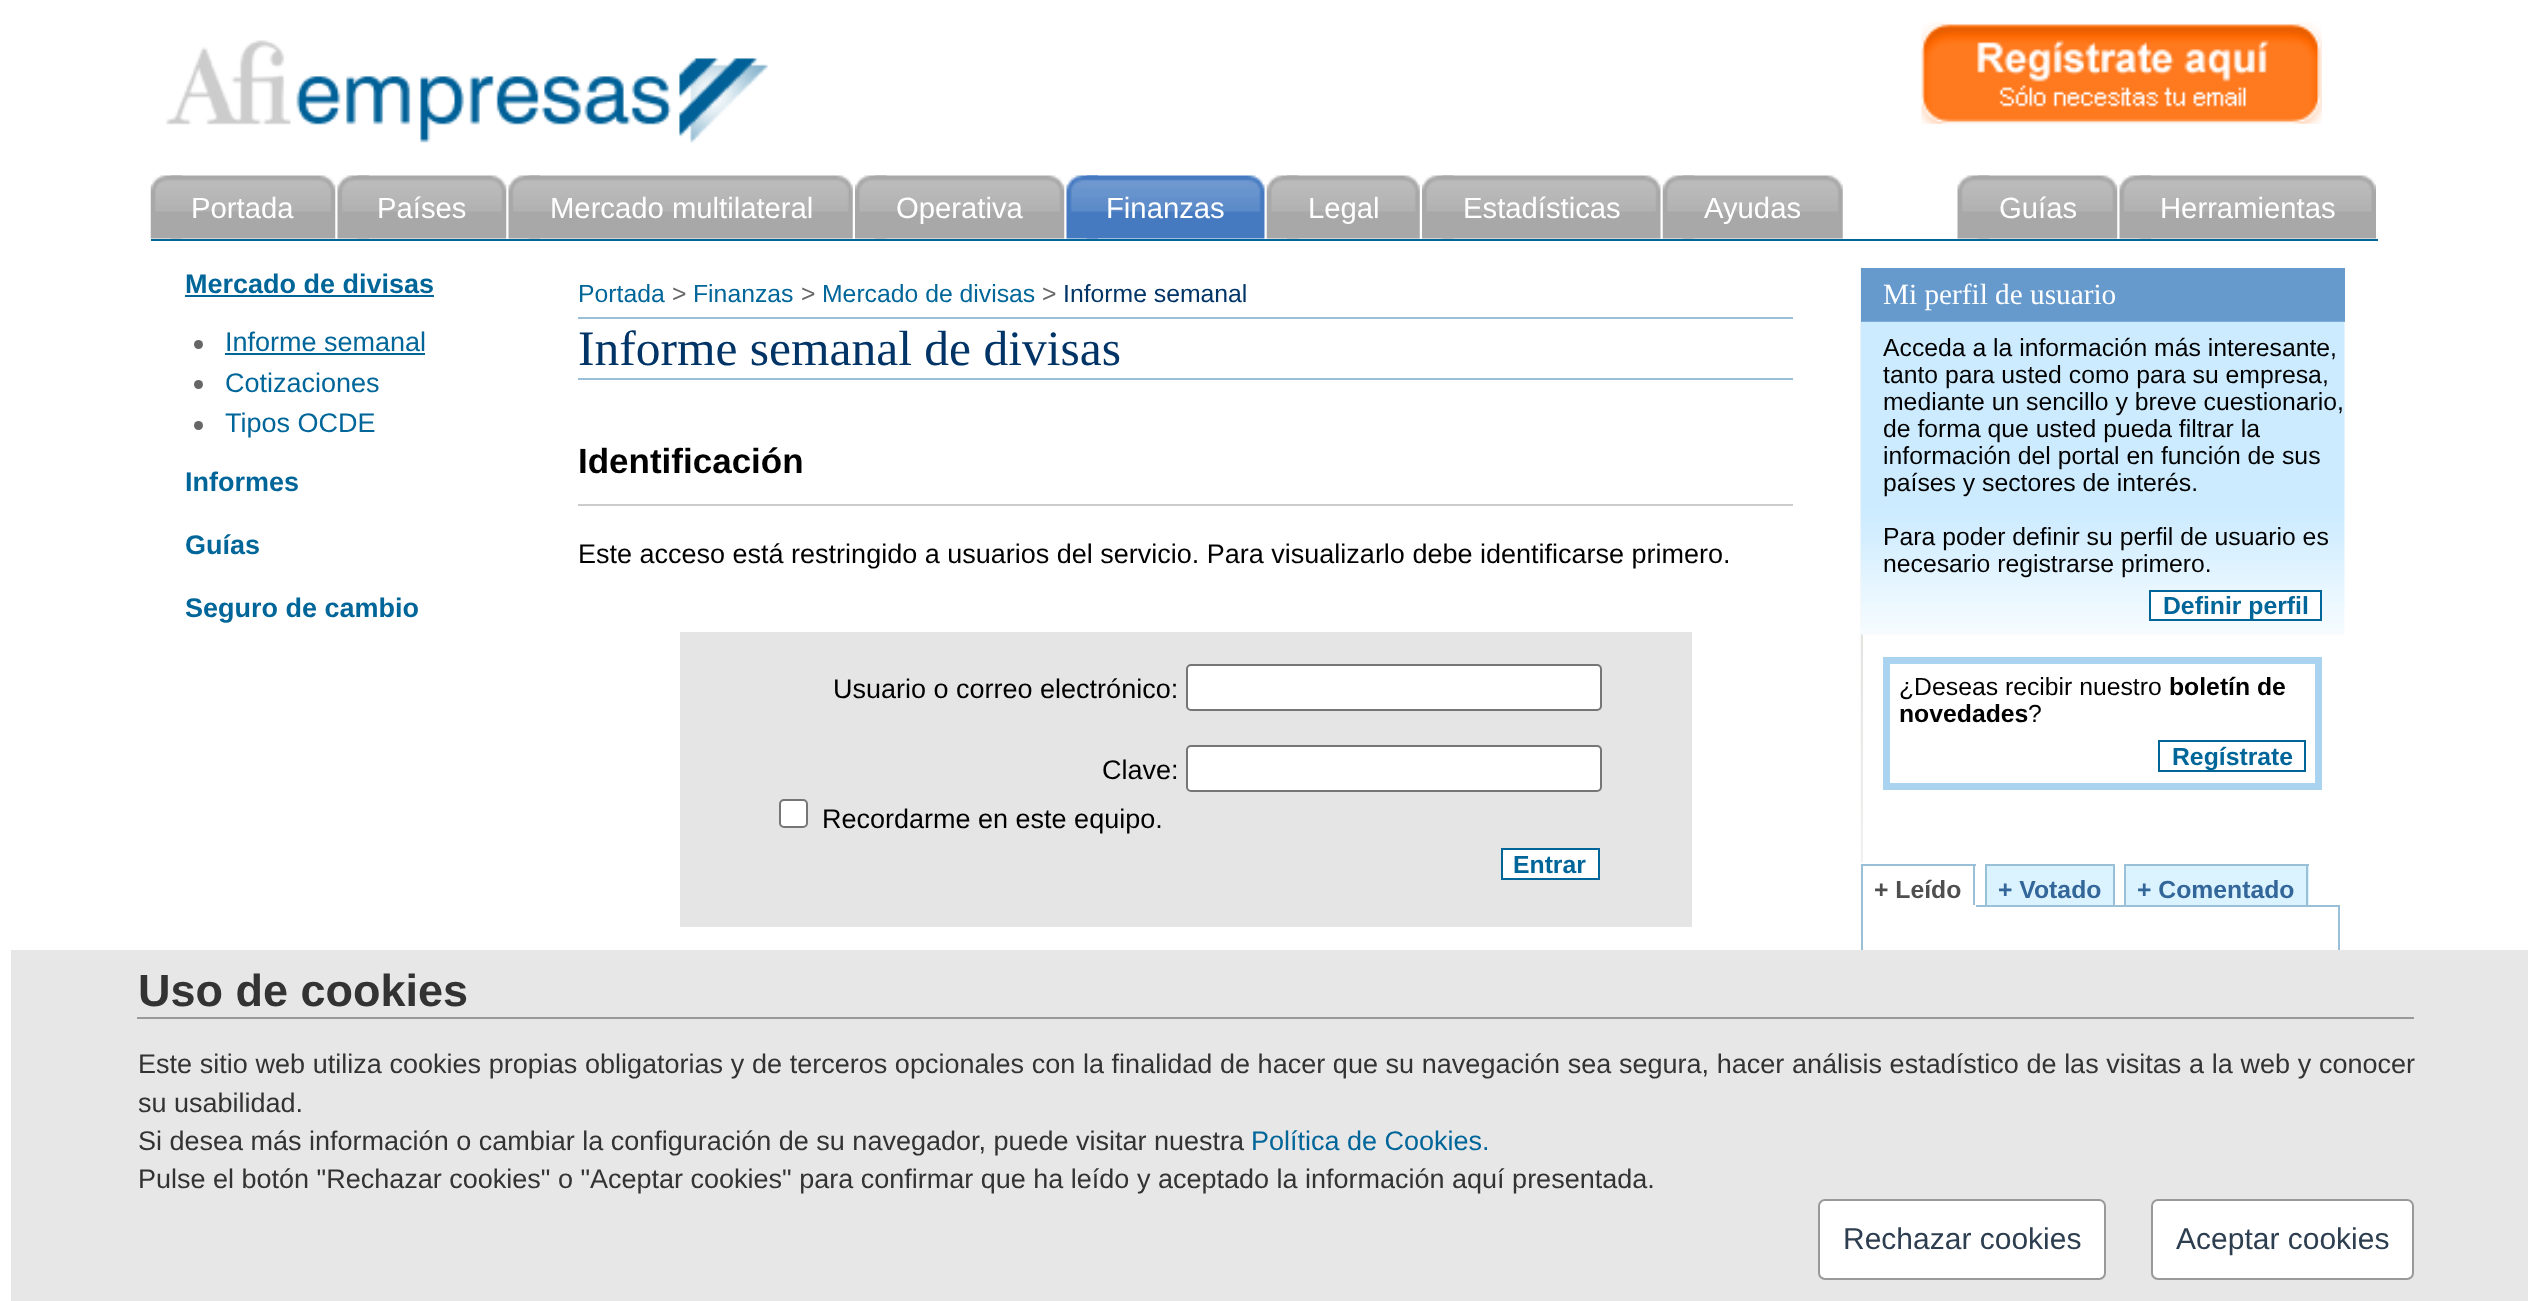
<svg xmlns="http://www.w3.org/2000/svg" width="2528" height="1301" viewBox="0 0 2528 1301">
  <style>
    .t1 { font: 29.25px Liberation Sans; fill: #fff; }
    .t2 { font: bold 27px Liberation Sans; fill: #069; }
    .t3 { font: 27px Liberation Sans; fill: #069; }
    .t4 { font: 24.75px Liberation Sans; fill: #069; }
    .t5 { font: 24.75px Liberation Sans; fill: #666; }
    .t6 { font: 24.75px Liberation Sans; fill: #036; }
    .t7 { font: 49.5px Liberation Serif; fill: #036; }
    .t8 { font: bold 35px Liberation Sans; fill: #000; }
    .t9 { font: 27px Liberation Sans; fill: #000; }
    .t10 { font: bold 24.75px Liberation Sans; fill: #069; }
    .t11 { font: 29.25px Liberation Serif; fill: #fff; }
    .t12 { font: 24.75px Liberation Sans; fill: #000; }
    .t13 { font: bold 24.75px Liberation Sans; fill: #000; }
    .t14 { font: bold 24.75px Liberation Sans; fill: #4f4f4f; }
    .t15 { font: bold 24.75px Liberation Sans; fill: #369; }
    .t16 { font: bold 45px Liberation Sans; fill: #333; }
    .t17 { font: 27px Liberation Sans; fill: #333; }
    .t18 { font: 30px Liberation Sans; fill: #2c3e50; }
  </style>
  <rect width="100%" height="100%" fill="#fff"/>
  <image x="166" y="40" width="602" height="103" href="images/1.png"/>
  <image x="1921" y="22" width="401" height="102" href="images/2.png"/>
  <rect x="151" y="239" width="2227" height="2" fill="#069"/>
  <image x="150" y="175" width="33" height="64" href="images/3.png"/>
  <image x="171" y="175" width="165" height="64" href="images/4.png"/>
  <text x="191" y="218" class="t1">Portada</text>
  <image x="337" y="175" width="32" height="64" href="images/5.png"/>
  <image x="357" y="175" width="150" height="64" href="images/6.png"/>
  <text x="377" y="218" class="t1">Países</text>
  <image x="508" y="175" width="32" height="64" href="images/5.png"/>
  <image x="528" y="175" width="325" height="64" href="images/7.png"/>
  <text x="550" y="218" class="t1">Mercado multilateral</text>
  <image x="855" y="175" width="32" height="64" href="images/8.png"/>
  <image x="875" y="175" width="190" height="64" href="images/9.png"/>
  <text x="896" y="218" class="t1">Operativa</text>
  <image x="1066" y="175" width="32" height="64" href="images/10.png"/>
  <image x="1086" y="175" width="179" height="64" href="images/11.png"/>
  <text x="1106" y="218" class="t1">Finanzas</text>
  <image x="1266" y="175" width="33" height="64" href="images/12.png"/>
  <image x="1287" y="175" width="133" height="64" href="images/13.png"/>
  <text x="1308" y="218" class="t1">Legal</text>
  <image x="1422" y="175" width="32" height="64" href="images/14.png"/>
  <image x="1442" y="175" width="219" height="64" href="images/15.png"/>
  <text x="1463" y="218" class="t1">Estadísticas</text>
  <image x="1662" y="175" width="33" height="64" href="images/16.png"/>
  <image x="1683" y="175" width="160" height="64" href="images/17.png"/>
  <text x="1704" y="218" class="t1">Ayudas</text>
  <image x="1957" y="175" width="32" height="64" href="images/18.png"/>
  <image x="1977" y="175" width="141" height="64" href="images/19.png"/>
  <text x="1999" y="218" class="t1">Guías</text>
  <image x="2119" y="175" width="32" height="64" href="images/18.png"/>
  <image x="2139" y="175" width="237" height="64" href="images/20.png"/>
  <text x="2160" y="218" class="t1">Herramientas</text>
  <text x="185" y="293" class="t2">Mercado de divisas</text>
  <rect x="185" y="295" width="249" height="2" fill="#069"/>
  <circle cx="198.5" cy="344.5" r="4.5" fill="#666"/>
  <text x="225" y="351" class="t3">Informe semanal</text>
  <rect x="225" y="353" width="200" height="2" fill="#069"/>
  <circle cx="198.5" cy="384.5" r="4.5" fill="#666"/>
  <text x="225" y="392" class="t3">Cotizaciones</text>
  <circle cx="198.5" cy="425.5" r="4.5" fill="#666"/>
  <text x="225" y="432" class="t3">Tipos OCDE</text>
  <text x="185" y="491" class="t2">Informes</text>
  <text x="185" y="554" class="t2">Guías</text>
  <text x="185" y="617" class="t2">Seguro de cambio</text>
  <rect x="578" y="317" width="1215" height="2" fill="#99c0d6"/>
  <text x="578" y="302" class="t4">Portada</text>
  <text x="672" y="302" class="t5">&gt;</text>
  <text x="693" y="302" class="t4">Finanzas</text>
  <text x="801" y="302" class="t5">&gt;</text>
  <text x="822" y="302" class="t4">Mercado de divisas</text>
  <text x="1042" y="302" class="t5">&gt;</text>
  <text x="1063" y="302" class="t6">Informe semanal</text>
  <rect x="578" y="378" width="1215" height="2" fill="#99c0d6"/>
  <text x="578" y="365" class="t7">Informe semanal de divisas</text>
  <rect x="578" y="504" width="1215" height="2" fill="#ccc"/>
  <text x="578" y="473" class="t8">Identificación</text>
  <text x="578" y="563" class="t9">Este acceso está restringido a usuarios del servicio. Para visualizarlo debe identificarse primero.</text>
  <rect x="680" y="632" width="1012" height="295" fill="#e5e5e5"/>
  <text x="833" y="698" class="t9">Usuario o correo electrónico:</text>
  <rect x="1187" y="665" width="414" height="45" rx="4" fill="#fff" stroke="#767676" stroke-width="2"/>
  <text x="1102" y="779" class="t9">Clave:</text>
  <rect x="1187" y="746" width="414" height="45" rx="4" fill="#fff" stroke="#767676" stroke-width="2"/>
  <rect x="780" y="800" width="27" height="27" rx="4" fill="#fff" stroke="#767676" stroke-width="2"/>
  <text x="822" y="828" class="t9">Recordarme en este equipo.</text>
  <rect x="1502" y="849" width="97" height="30" fill="#fff" stroke="#069" stroke-width="2"/>
  <text x="1513" y="873" class="t10">Entrar</text>
  <image x="1860" y="267" width="3" height="683" href="images/21.png"/>
  <rect x="1861" y="268" width="484" height="54" fill="#69c"/>
  <text x="1883" y="304" class="t11">Mi perfil de usuario</text>
  <image x="1860" y="321" width="485" height="314" href="images/22.png"/>
  <text x="1883" y="356" class="t12">Acceda a la información más interesante,</text>
  <text x="1883" y="383" class="t12">tanto para usted como para su empresa,</text>
  <text x="1883" y="410" class="t12">mediante un sencillo y breve cuestionario,</text>
  <text x="1883" y="437" class="t12">de forma que usted pueda filtrar la</text>
  <text x="1883" y="464" class="t12">información del portal en función de sus</text>
  <text x="1883" y="491" class="t12">países y sectores de interés.</text>
  <text x="1883" y="545" class="t12">Para poder definir su perfil de usuario es</text>
  <text x="1883" y="572" class="t12">necesario registrarse primero.</text>
  <rect x="2150" y="591" width="171" height="29" fill="#fff" stroke="#069" stroke-width="2"/>
  <text x="2163" y="614" class="t10">Definir perfil</text>
  <rect x="1886.5" y="660.5" width="432" height="126" fill="none" stroke="#a9d3ee" stroke-width="7"/>
  <text x="1899" y="695" class="t12">¿Deseas recibir nuestro</text>
  <text x="2169" y="695" class="t13">boletín de</text>
  <text x="1899" y="722" class="t13">novedades</text>
  <text x="2028" y="722" class="t12">?</text>
  <rect x="2159" y="741" width="146" height="30" fill="none" stroke="#069" stroke-width="2"/>
  <text x="2172" y="765" class="t10">Regístrate</text>
  <rect x="1861" y="862" width="2" height="43" fill="#fff"/>
  <rect x="1976" y="905" width="364" height="2" fill="#99c0d6"/>
  <text x="1874" y="898" class="t14">+ Leído</text>
  <rect x="1861" y="864" width="115" height="2" fill="#99c0d6"/>
  <rect x="1973" y="864" width="2" height="43" fill="#99c0d6"/>
  <rect x="1861" y="905" width="115" height="2" fill="#fff"/>
  <rect x="1861" y="864" width="2" height="43" fill="#99c0d6"/>
  <rect x="1987" y="866" width="126" height="39" fill="#dbf3ff"/>
  <text x="1998" y="898" class="t15">+ Votado</text>
  <rect x="1985" y="864" width="130" height="2" fill="#99c0d6"/>
  <rect x="2113" y="864" width="2" height="41" fill="#99c0d6"/>
  <rect x="1985" y="864" width="2" height="41" fill="#99c0d6"/>
  <rect x="2126" y="866" width="183" height="39" fill="#dbf3ff"/>
  <text x="2137" y="898" class="t15">+ Comentado</text>
  <rect x="2124" y="864" width="185" height="2" fill="#99c0d6"/>
  <rect x="2306" y="864" width="2" height="41" fill="#99c0d6"/>
  <rect x="2124" y="864" width="2" height="41" fill="#99c0d6"/>
  <rect x="2338" y="907" width="2" height="43" fill="#99c0d6"/>
  <rect x="1861" y="907" width="2" height="43" fill="#99c0d6"/>
  <rect x="11" y="950" width="2517" height="351" fill="#e7e7e7"/>
  <rect x="137" y="1017" width="2277" height="2" fill="#999"/>
  <text x="138" y="1006" class="t16">Uso de cookies</text>
  <text x="138" y="1073" word-spacing="0.2" class="t17">Este sitio web utiliza cookies propias obligatorias y de terceros opcionales con la finalidad de hacer que su navegación sea segura, hacer análisis estadístico de las visitas a la web y conocer</text>
  <text x="138" y="1112" class="t17">su usabilidad.</text>
  <text x="138" y="1150" class="t17">Si desea más información o cambiar la configuración de su navegador, puede visitar nuestra</text>
  <text x="1251" y="1150" class="t3">Política de Cookies.</text>
  <text x="138" y="1188" class="t17">Pulse el botón "Rechazar cookies" o "Aceptar cookies" para confirmar que ha leído y aceptado la información aquí presentada.</text>
  <rect x="1819" y="1200" width="286" height="79" rx="6" fill="#fff" stroke="#999" stroke-width="2"/>
  <text x="1843" y="1249" class="t18">Rechazar cookies</text>
  <rect x="2152" y="1200" width="261" height="79" rx="6" fill="#fff" stroke="#999" stroke-width="2"/>
  <text x="2176" y="1249" class="t18">Aceptar cookies</text>
</svg>
